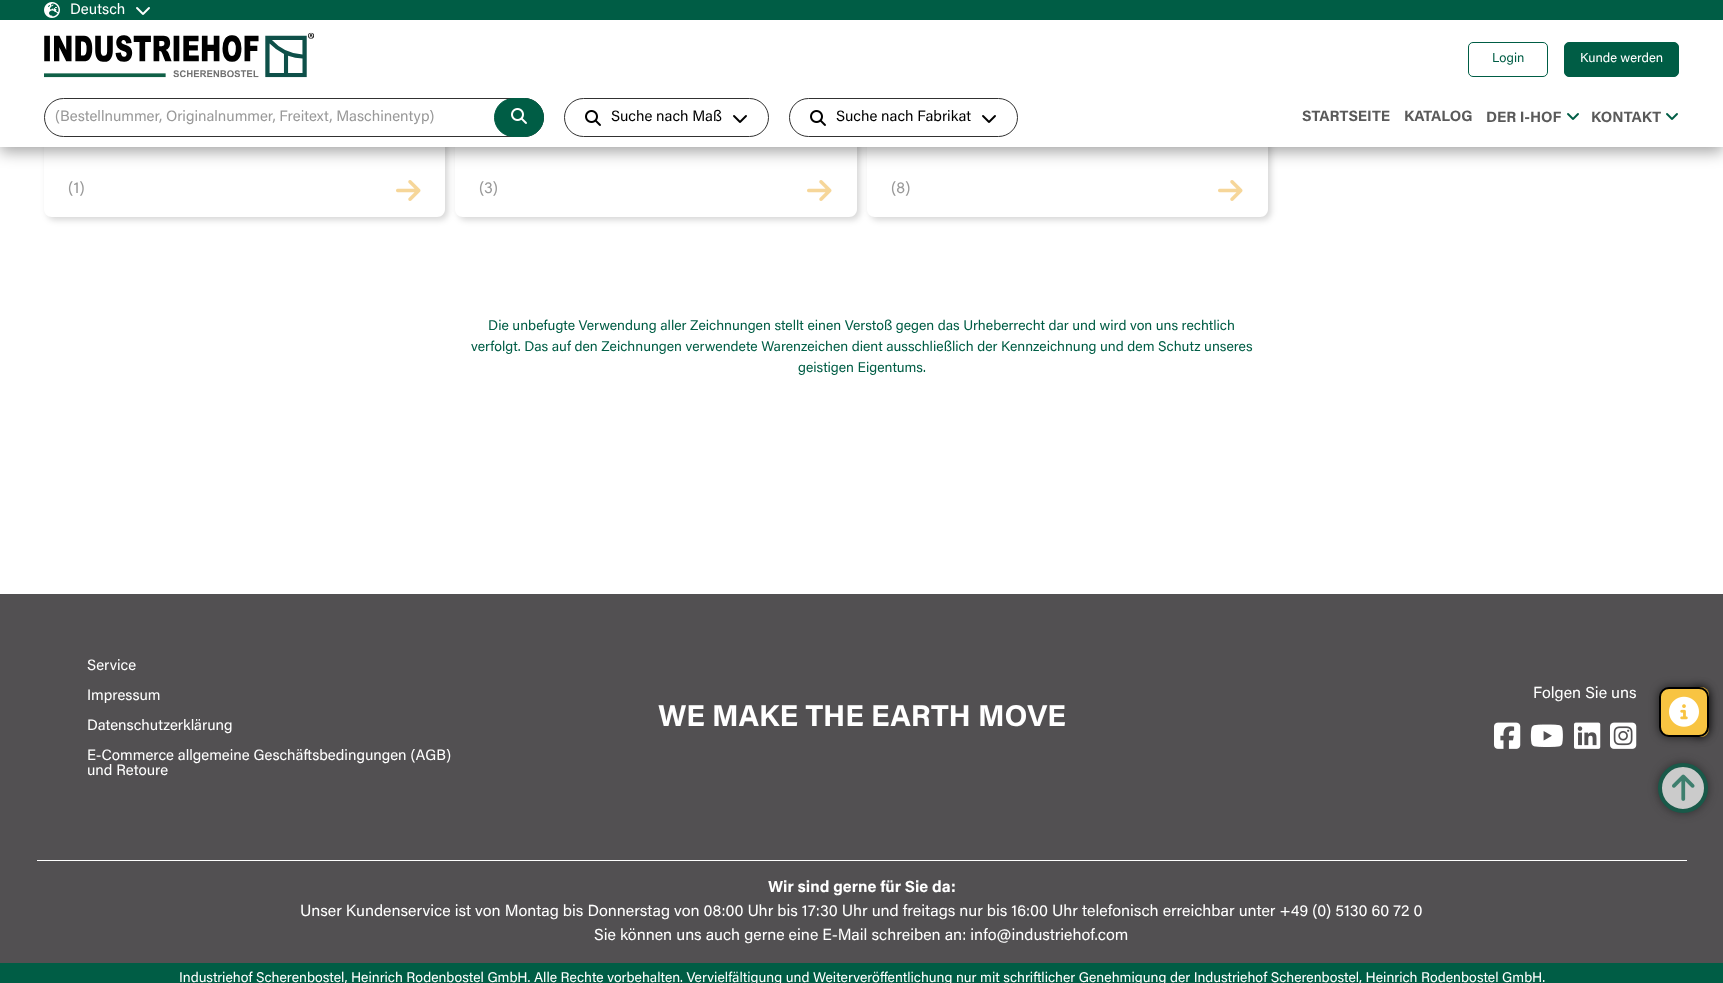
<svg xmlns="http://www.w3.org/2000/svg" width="1723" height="983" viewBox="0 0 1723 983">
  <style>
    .t1 { font: 15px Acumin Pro; fill: #fff; }
    .t2 { font: 13px Acumin Pro; fill: #005d45; }
    .t3 { font: 13px Acumin Pro; fill: #fff; }
    .t4 { font: 15px Acumin Pro; fill: #999; }
    .t5 { font: 15px Acumin Pro; fill: #000; }
    .t6 { font: bold 15px Acumin Pro; fill: #5a5a5a; }
    .t7 { font: 16px Acumin Pro; fill: #999; }
    .t8 { font: 14px Acumin Pro; fill: #005d45; }
    .t9 { font: 16px Acumin Pro; fill: #fff; }
    .t10 { font: bold 30px Acumin Pro; fill: #fff; }
    .t11 { font: bold 16px Acumin Pro; fill: #fff; }
    .t12 { font: 14px Acumin Pro; fill: #fff; }
  </style>
  <defs>
    <clipPath id="clip1"><path d="M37 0H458V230H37ZM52-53H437C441.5-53 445-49.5 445-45V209C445 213.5 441.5 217 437 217H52C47.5 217 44 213.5 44 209V-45C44-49.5 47.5-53 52-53Z" clip-rule="evenodd"/></clipPath>
    <clipPath id="clip2"><path d="M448 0H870V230H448ZM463-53H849C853.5-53 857-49.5 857-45V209C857 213.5 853.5 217 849 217H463C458.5 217 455 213.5 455 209V-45C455-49.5 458.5-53 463-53Z" clip-rule="evenodd"/></clipPath>
    <clipPath id="clip3"><path d="M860 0H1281V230H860ZM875-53H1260C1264.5-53 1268-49.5 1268-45V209C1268 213.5 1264.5 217 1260 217H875C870.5 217 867 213.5 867 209V-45C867-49.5 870.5-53 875-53Z" clip-rule="evenodd"/></clipPath>
  </defs>
  <rect width="100%" height="100%" fill="#fff"/>
  <rect x="0" y="5" width="1723" height="147" fill="#00000059" filter="blur(7.5px)"/>
  <g clip-path="url(#clip1)">
    <rect x="47" y="-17" width="401" height="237" rx="8" fill="#00000029" filter="blur(3px)"/>
  </g>
  <g clip-path="url(#clip2)">
    <rect x="458" y="-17" width="402" height="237" rx="8" fill="#00000029" filter="blur(3px)"/>
  </g>
  <g clip-path="url(#clip3)">
    <rect x="870" y="-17" width="401" height="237" rx="8" fill="#00000029" filter="blur(3px)"/>
  </g>
  <rect x="0" y="20" width="1723" height="127" fill="#fff"/>
  <rect x="0" y="0" width="1723" height="20" fill="#005d45"/>
  <image x="44" y="2" width="16" height="16" href="images/1.png"/>
  <text x="70" y="14" class="t1">Deutsch</text>
  <image x="136" y="7" width="14" height="8" href="images/2.png"/>
  <image x="44" y="32" width="270" height="46" href="images/3.png"/>
  <rect x="1468.5" y="42.5" width="79" height="34" rx="4.5" fill="none" stroke="#005d45"/>
  <text x="1492" y="62" class="t2">Login</text>
  <rect x="1564.5" y="42.5" width="114" height="34" rx="4.5" fill="#005d45" stroke="#005d45"/>
  <text x="1580" y="62" class="t3">Kunde werden</text>
  <rect x="44.5" y="98.5" width="499" height="38" rx="19" fill="none" stroke="#313131"/>
  <text x="55" y="121" class="t4">(Bestellnummer, Originalnummer, Freitext, Maschinentyp)</text>
  <rect x="494.5" y="98.5" width="49" height="38" rx="19" fill="#005d45" stroke="#005d45"/>
  <image x="511" y="108" width="16" height="16" href="images/4.png"/>
  <rect x="564.5" y="98.5" width="204" height="38" rx="19" fill="none" stroke="#313131"/>
  <image x="585" y="110" width="16" height="16" href="images/5.png"/>
  <text x="611" y="121" class="t5">Suche nach Maß</text>
  <image x="733" y="115" width="14" height="8" href="images/6.png"/>
  <rect x="789.5" y="98.5" width="228" height="38" rx="19" fill="none" stroke="#313131"/>
  <image x="810" y="110" width="16" height="16" href="images/5.png"/>
  <text x="836" y="121" class="t5">Suche nach Fabrikat</text>
  <image x="982" y="115" width="14" height="8" href="images/6.png"/>
  <text x="1302" y="121" class="t6">STARTSEITE</text>
  <text x="1404" y="121" class="t6">KATALOG</text>
  <text x="1486" y="122" class="t6">DER I-HOF</text>
  <image x="1567" y="113" width="12" height="7" href="images/7.png"/>
  <text x="1591" y="122" class="t6">KONTAKT</text>
  <image x="1666" y="113" width="12" height="7" href="images/7.png"/>
  <text x="68" y="193" class="t7">(1)</text>
  <image x="396" y="180" width="25" height="21" href="images/8.png"/>
  <text x="479" y="193" class="t7">(3)</text>
  <image x="807" y="180" width="25" height="21" href="images/8.png"/>
  <text x="891" y="193" class="t7">(8)</text>
  <image x="1218" y="180" width="25" height="21" href="images/8.png"/>
  <text x="488" y="330" class="t8">Die unbefugte Verwendung aller Zeichnungen stellt einen Verstoß gegen das Urheberrecht dar und wird von uns rechtlich</text>
  <text x="471" y="351" class="t8">verfolgt. Das auf den Zeichnungen verwendete Warenzeichen dient ausschließlich der Kennzeichnung und dem Schutz unseres</text>
  <text x="798" y="372" class="t8">geistigen Eigentums.</text>
  <rect x="0" y="594" width="1723" height="369" fill="#525052"/>
  <text x="87" y="670" class="t1">Service</text>
  <text x="87" y="700" class="t1">Impressum</text>
  <text x="87" y="730" class="t1">Datenschutzerklärung</text>
  <text x="87" y="760" class="t1">E-Commerce allgemeine Geschäftsbedingungen (AGB)</text>
  <text x="87" y="775" class="t1">und Retoure</text>
  <text x="1533" y="698" class="t9">Folgen Sie uns</text>
  <image x="1494" y="722" width="27" height="27" href="images/9.png"/>
  <image x="1530" y="724" width="33" height="23" href="images/10.png"/>
  <image x="1574" y="722" width="27" height="27" href="images/11.png"/>
  <image x="1610" y="722" width="27" height="27" href="images/12.png"/>
  <text x="658" y="726" class="t10">WE MAKE THE EARTH MOVE</text>
  <rect x="37" y="860" width="1650" height="1" fill="#fff"/>
  <text x="768" y="892" class="t11">Wir sind gerne für Sie da:</text>
  <text x="300" y="916" class="t9">Unser Kundenservice ist von Montag bis Donnerstag von 08:00 Uhr bis 17:30 Uhr und freitags nur bis 16:00 Uhr telefonisch erreichbar unter +49 (0) 5130 60 72 0</text>
  <text x="594" y="940" class="t9">Sie können uns auch gerne eine E-Mail schreiben an: info@industriehof.com</text>
  <rect x="0" y="963" width="1723" height="20" fill="#005d45"/>
  <text x="179" y="982" class="t12">Industriehof Scherenbostel, Heinrich Rodenbostel GmbH. Alle Rechte vorbehalten. Vervielfältigung und Weiterveröffentlichung nur mit schriftlicher Genehmigung der Industriehof Scherenbostel, Heinrich Rodenbostel GmbH.</text>
  <rect x="1693" y="687" width="16" height="50" rx="8" fill="#00000099" filter="blur(5px)"/>
  <rect x="1693" y="687" width="16" height="50" rx="8" fill="#f8c442"/>
  <rect x="1659" y="687" width="50" height="50" rx="10" fill="#00000099" filter="blur(5px)"/>
  <rect x="1660" y="688" width="48" height="48" rx="9" fill="#f8c442" stroke="#000" stroke-width="2"/>
  <image x="1669" y="696" width="30" height="31" href="images/13.png"/>
  <rect x="1658" y="763" width="50" height="50" rx="25" fill="#19181999" filter="blur(5px)"/>
  <circle cx="1683" cy="788" r="23" fill="#cbcbcb" stroke="#195949" stroke-width="4"/>
  <image x="1672" y="774" width="23" height="27" href="images/14.png"/>
</svg>
